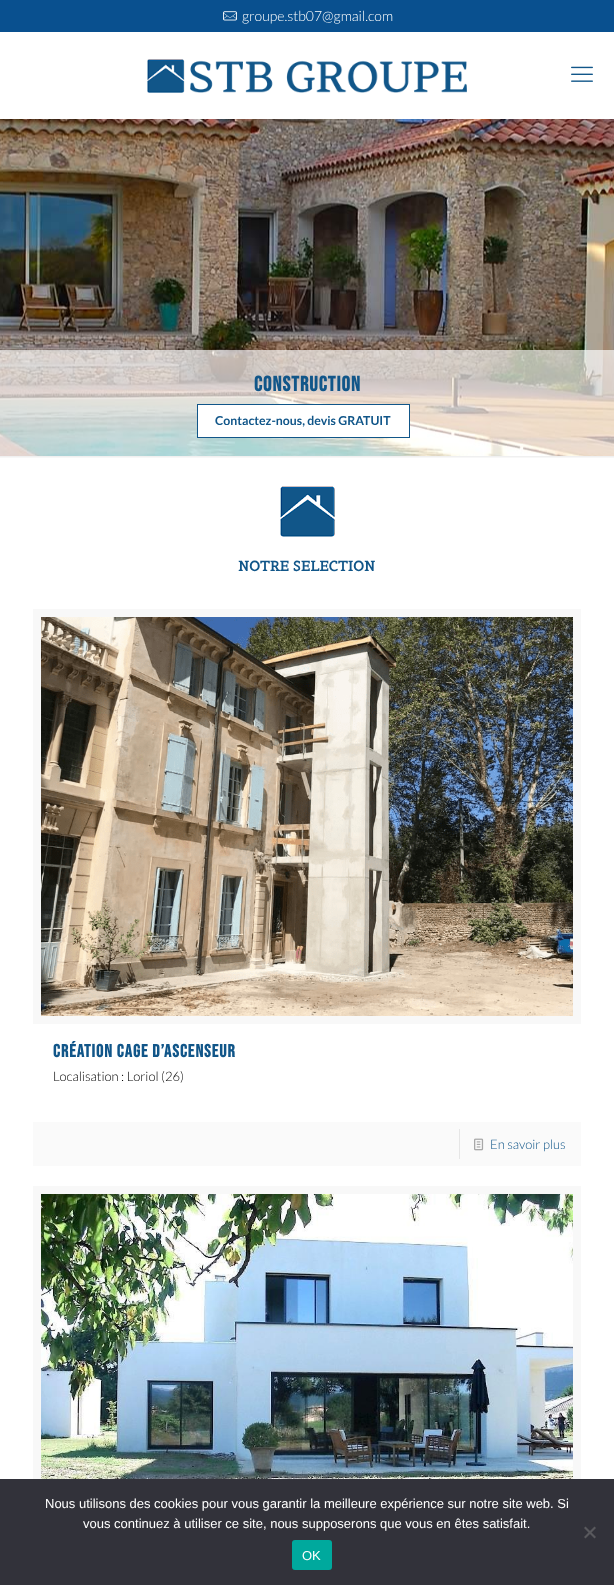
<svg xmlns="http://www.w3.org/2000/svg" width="614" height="1585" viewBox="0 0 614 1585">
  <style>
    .t1 { font: 300 14px Lato; fill: #fff; }
    .t2 { font: bold 21px Bebas Neue; letter-spacing: 1px; fill: #115689; }
    .t3 { font: bold 12.3px Lato; fill: #115689; }
    .t4 { font: bold 14px Belgrano; fill: #115689; }
    .t5 { font: bold 18px Bebas Neue; letter-spacing: 1px; fill: #115689; }
    .t6 { font: 300 13px Lato; fill: #000; }
    .t7 { font: 300 13px Lato; fill: #115689; }
    .t8 { font: 13px Liberation Sans; fill: #fff; }
  </style>
  <rect width="100%" height="100%" fill="#fff"/>
  <image x="0" y="119" width="614" height="337" href="images/1.png"/>
  <rect x="0" y="0" width="614" height="32" fill="#09508f"/>
  <image x="223" y="11" width="14" height="10" href="images/2.png"/>
  <text x="242" y="21" class="t1">groupe.stb07@gmail.com</text>
  <image x="147" y="59" width="320" height="34" href="images/3.png"/>
  <image x="571" y="66" width="22" height="16" href="images/4.png"/>
  <rect x="0" y="350" width="614" height="106" fill="#ffffffab"/>
  <text x="254" y="391" class="t2">Construction</text>
  <rect x="197.5" y="404.5" width="212" height="33" fill="#fff" stroke="#115689"/>
  <text x="215" y="425" class="t3">Contactez-nous, devis GRATUIT</text>
  <image x="0" y="456" width="614" height="2" href="images/5.png"/>
  <image x="280" y="486" width="55" height="51" href="images/6.png"/>
  <text x="238" y="571" class="t4">NOTRE SELECTION</text>
  <rect x="37" y="613" width="540" height="407" fill="none" stroke="#f8f8f8" stroke-width="8"/>
  <image x="41" y="617" width="532" height="399" href="images/7.png"/>
  <text x="53" y="1057" class="t5">Création cage d’ascenseur</text>
  <text x="53" y="1081" class="t6">Localisation : Loriol (26)</text>
  <rect x="33" y="1122" width="548" height="44" fill="#fafafa"/>
  <rect x="459" y="1129" width="1" height="30" fill="#e6e6e6"/>
  <image x="474" y="1138" width="10" height="13" href="images/8.png"/>
  <text x="490" y="1149" class="t7">En savoir plus</text>
  <rect x="37" y="1190" width="540" height="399" fill="none" stroke="#f8f8f8" stroke-width="8"/>
  <image x="41" y="1194" width="532" height="285" href="images/9.png"/>
  <rect x="0" y="1479" width="614" height="106" fill="#32323a"/>
  <text x="45" y="1508" class="t8">Nous utilisons des cookies pour vous garantir la meilleure expérience sur notre site web. Si</text>
  <text x="83" y="1528" class="t8">vous continuez à utiliser ce site, nous supposerons que vous en êtes satisfait.</text>
  <path d="M594.5 1526.5L596 1528L585.5 1538.5L584 1537Z" fill="#59595d"/>
  <path d="M584 1528L585.5 1526.5L596 1537L594.5 1538.5Z" fill="#59595d"/>
  <rect x="292" y="1540" width="40" height="30" rx="3" fill="#00a99d"/>
  <text x="302" y="1560" class="t8">OK</text>
</svg>
